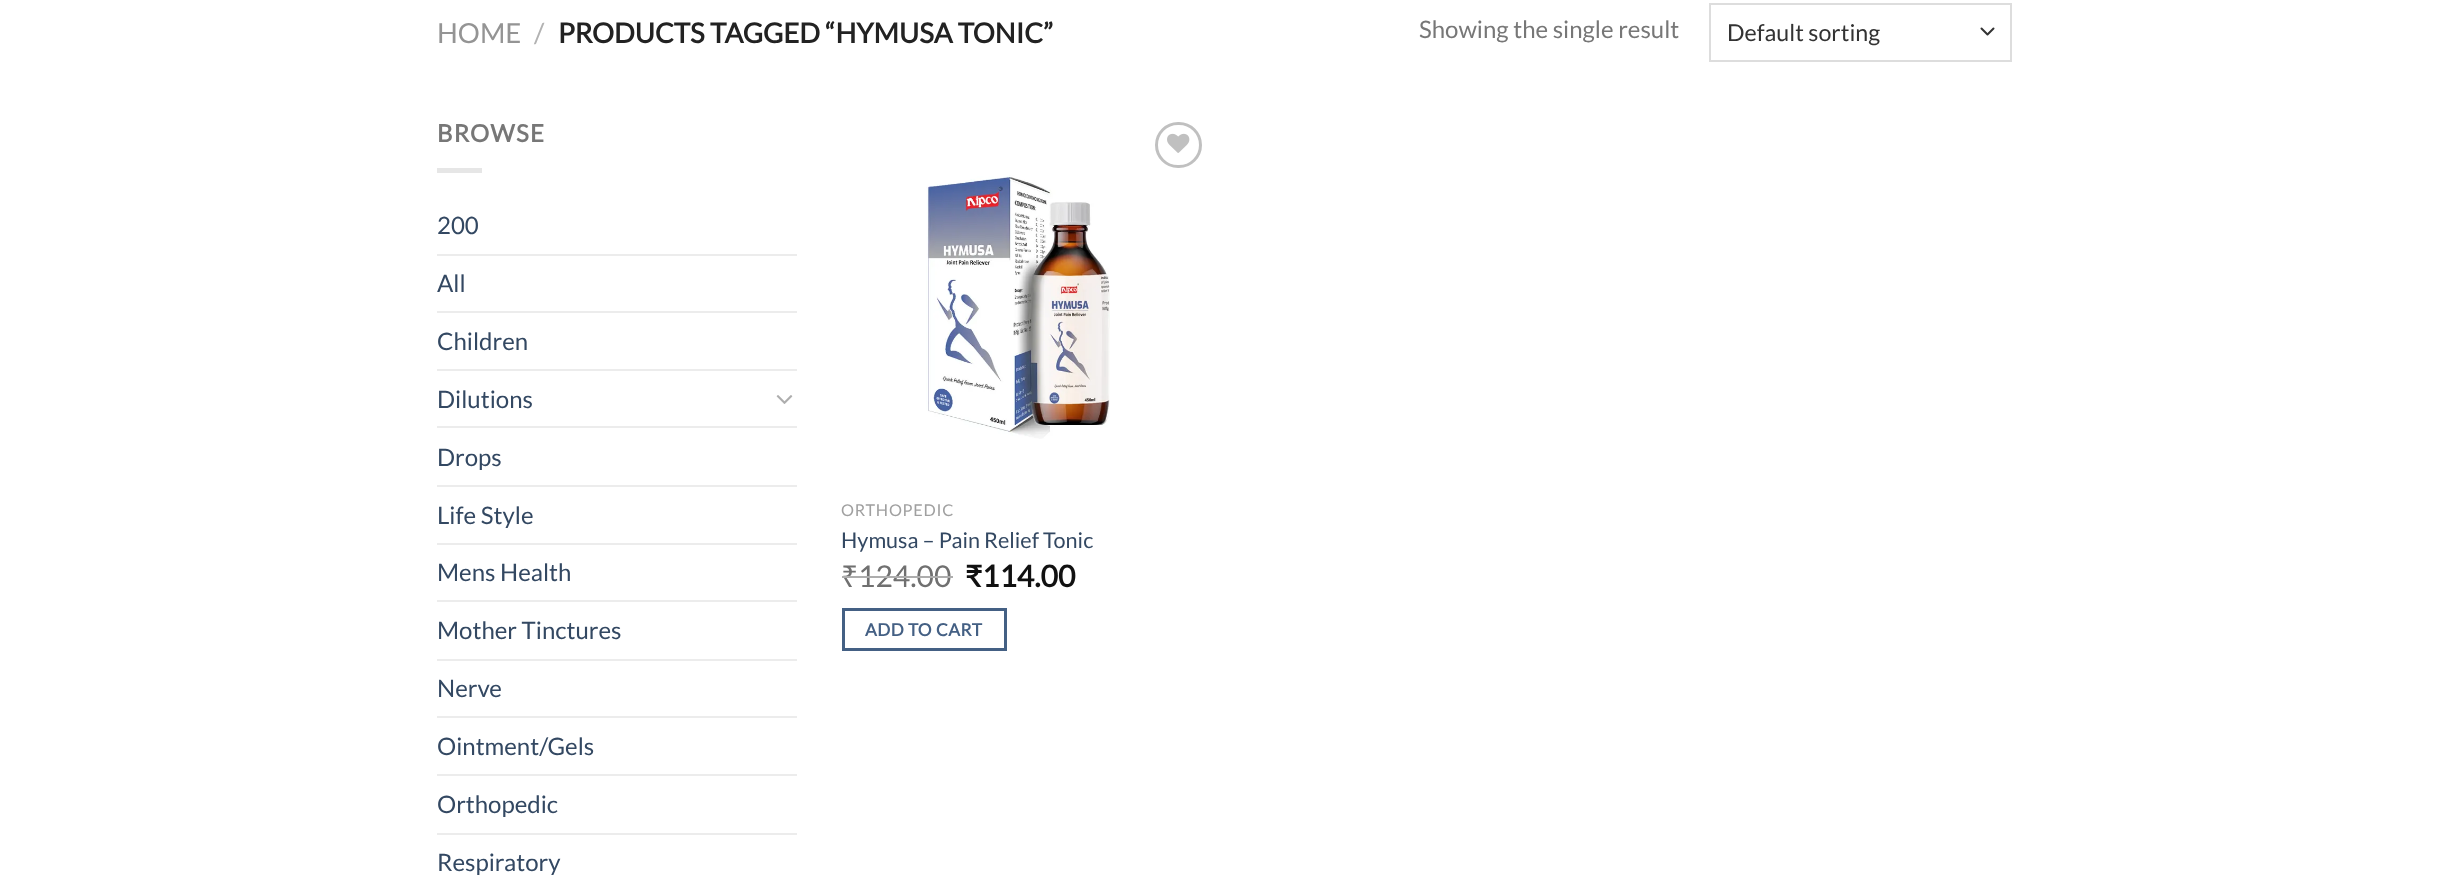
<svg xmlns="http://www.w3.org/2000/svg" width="2448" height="876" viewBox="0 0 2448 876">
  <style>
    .t1 { font: 27.6px Lato; fill: #949494; }
    .t2 { font: 27.6px Lato; fill: #b2b2b2; }
    .t3 { font: bold 27.6px Lato; fill: #222; }
    .t4 { font: 24px Lato; fill: #777; }
    .t5 { font: 23.25px Lato; fill: #333; }
    .t6 { font: bold 24px Lato; letter-spacing: 1.25px; fill: #777; }
    .t7 { font: 24px Lato; fill: #334862; }
    .t8 { font: 16.25px Lato; letter-spacing: 0.75px; fill: #a0a0a0; }
    .t9 { font: 21.6px Lato; fill: #334862; }
    .t10 { font: 30px Noto Sans; fill: #707070; }
    .t11 { font: 30px Lato; fill: #707070; }
    .t12 { font: bold 30px 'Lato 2'; fill: #111; }
    .t13 { font: bold 30px Lato; fill: #111; }
    .t14 { font: bold 17.25px Lato; letter-spacing: 0.5px; fill: #446084; }
  </style>
  <rect width="100%" height="100%" fill="#fff"/>
  <text x="437" y="43" class="t1">HOME</text>
  <text x="534" y="43" class="t2">/</text>
  <text x="558" y="43" class="t3">PRODUCTS TAGGED “HYMUSA TONIC”</text>
  <text x="1419" y="38" class="t4">Showing the single result</text>
  <path d="M1981.5 28.5L1987.5 34.5L1993.5 28.5" fill="none" stroke="#333" stroke-width="2" stroke-linecap="round" stroke-linejoin="round"/>
  <rect x="1710" y="4" width="301" height="57" fill="none" stroke="#ddd" stroke-width="2"/>
  <text x="1727" y="41" class="t5">Default sorting</text>
  <text x="437" y="142" class="t6">BROWSE</text>
  <rect x="437" y="168" width="45" height="5" fill="#e6e6e6"/>
  <text x="437" y="234" class="t7">200</text>
  <rect x="437" y="254" width="360" height="2" fill="#ececec"/>
  <text x="437" y="292" class="t7">All</text>
  <rect x="437" y="311" width="360" height="2" fill="#ececec"/>
  <text x="437" y="350" class="t7">Children</text>
  <rect x="437" y="369" width="360" height="2" fill="#ececec"/>
  <text x="437" y="408" class="t7">Dilutions</text>
  <image x="776" y="395" width="17" height="9" href="images/1.png"/>
  <rect x="437" y="426" width="360" height="2" fill="#ececec"/>
  <text x="437" y="466" class="t7">Drops</text>
  <rect x="437" y="485" width="360" height="2" fill="#ececec"/>
  <text x="437" y="524" class="t7">Life Style</text>
  <rect x="437" y="543" width="360" height="2" fill="#ececec"/>
  <text x="437" y="581" class="t7">Mens Health</text>
  <rect x="437" y="600" width="360" height="2" fill="#ececec"/>
  <text x="437" y="639" class="t7">Mother Tinctures</text>
  <rect x="437" y="659" width="360" height="2" fill="#ececec"/>
  <text x="437" y="697" class="t7">Nerve</text>
  <rect x="437" y="716" width="360" height="2" fill="#ececec"/>
  <text x="437" y="755" class="t7">Ointment/Gels</text>
  <rect x="437" y="774" width="360" height="2" fill="#ececec"/>
  <text x="437" y="813" class="t7">Orthopedic</text>
  <rect x="437" y="833" width="360" height="2" fill="#ececec"/>
  <text x="437" y="871" class="t7">Respiratory</text>
  <rect x="1156.5" y="123.5" width="44" height="43" rx="21.5" fill="none" stroke="#c0c0c0" stroke-width="3"/>
  <image x="1167" y="133" width="23" height="20" href="images/2.png"/>
  <image x="926" y="175" width="184" height="264" href="images/3.png"/>
  <text x="841" y="516" class="t8">ORTHOPEDIC</text>
  <text x="841" y="548" class="t9">Hymusa – Pain Relief Tonic</text>
  <text x="841" y="587" class="t10">₹</text>
  <rect x="842" y="576" width="16" height="2" fill="#adadad"/>
  <text x="858" y="587" class="t11">124.00</text>
  <rect x="858" y="576" width="95" height="2" fill="#adadad"/>
  <text x="965" y="587" class="t12">₹</text>
  <text x="982" y="587" class="t13">114.00</text>
  <rect x="843.5" y="609.5" width="162" height="40" fill="none" stroke="#446084" stroke-width="3"/>
  <text x="865" y="636" class="t14">ADD TO CART</text>
</svg>
